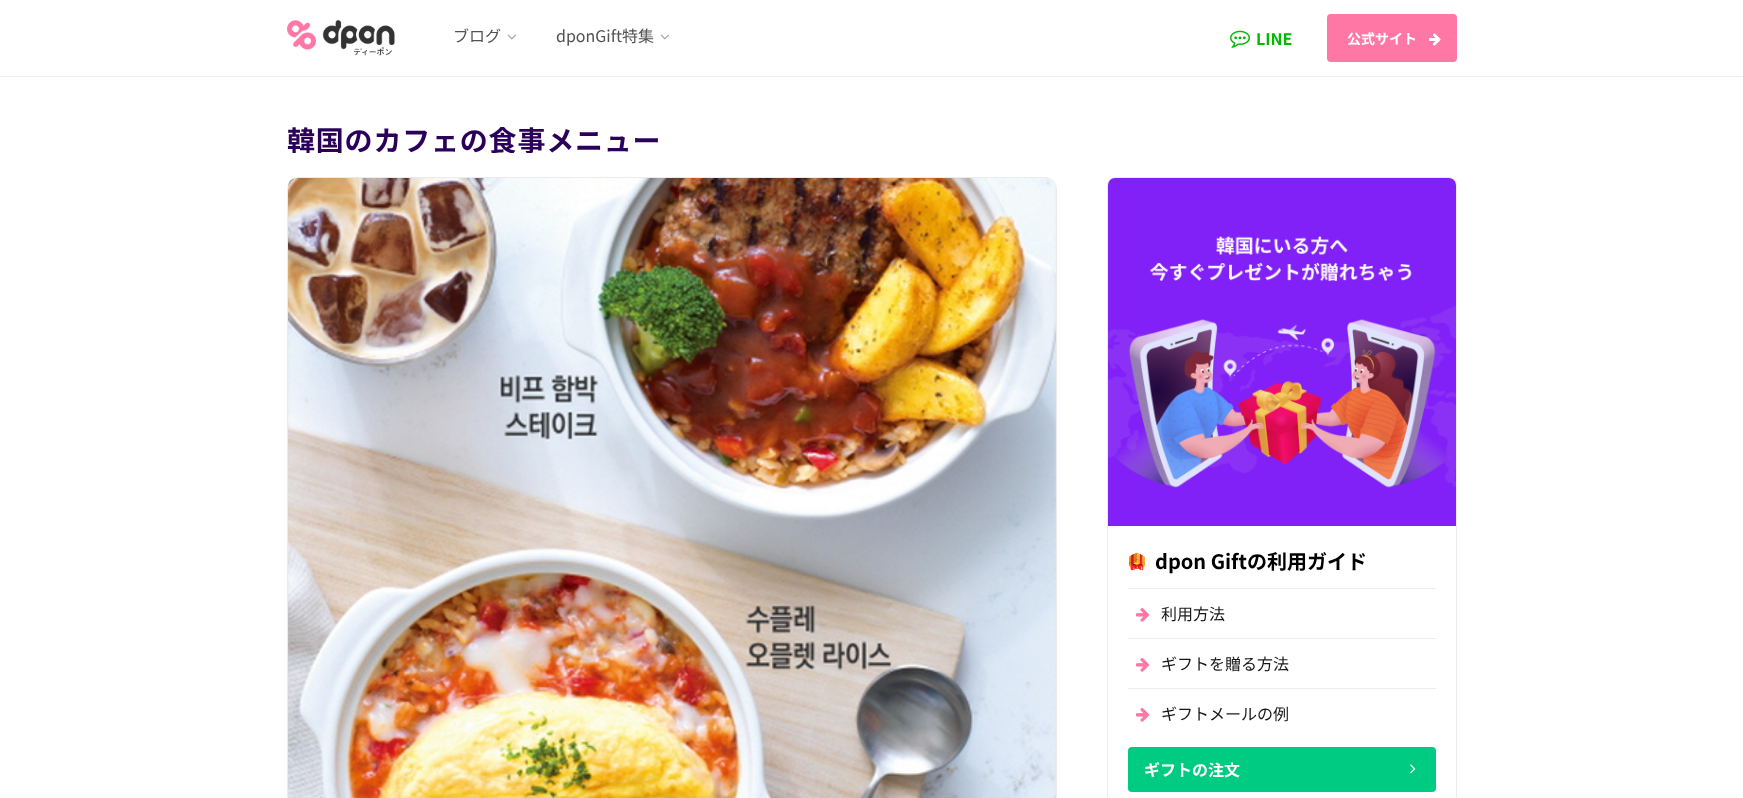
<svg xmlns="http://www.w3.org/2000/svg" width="1743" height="798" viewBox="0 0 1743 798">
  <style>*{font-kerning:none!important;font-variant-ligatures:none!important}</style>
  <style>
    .t1 { font: 16px Noto Sans JP; fill: #525252; }
    .t2 { font: bold 16px Noto Sans JP; fill: #00b900; }
    .t3 { font: bold 14px Noto Sans JP; fill: #fff; }
    .t4 { font: bold 28px Noto Sans JP; letter-spacing: 0.8px; fill: #2b005a; }
    .t5 { font: bold 16px Noto Color Emoji; fill: #000; }
    .t6 { font: bold 20px Noto Sans JP; fill: #000; }
    .t7 { font: 16px Noto Sans JP; fill: #161616; }
    .t8 { font: bold 16px Noto Sans JP; fill: #fff; }
  </style>
  <defs>
    <clipPath id="clip1"><rect x="287" y="77" width="1170" height="76"/></clipPath>
  </defs>
  <rect width="100%" height="100%" fill="#fff"/>
  <rect x="0" y="76" width="1743" height="1" fill="#efefef"/>
  <image x="287" y="19" width="108" height="37" href="images/1.png"/>
  <text x="453" y="42" class="t1">ブログ</text>
  <image x="507" y="34" width="9" height="6" href="images/2.png"/>
  <text x="556" y="42" class="t1">dponGift特集</text>
  <image x="660" y="34" width="9" height="6" href="images/2.png"/>
  <image x="1230" y="30" width="20" height="18" href="images/3.png"/>
  <text x="1256" y="45" class="t2">LINE</text>
  <rect x="1327" y="14" width="130" height="48" rx="4" fill="#ff77a4"/>
  <text x="1347" y="44" class="t3">公式サイト</text>
  <image x="1429" y="33" width="12" height="13" href="images/4.png"/>
  <g clip-path="url(#clip1)">
    <text x="287" y="151" class="t4">韓国のカフェの食事メニュー</text>
  </g>
  <rect x="287.5" y="177.5" width="769" height="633" rx="11.5" fill="none" stroke="#ebebeb"/>
  <image x="288" y="178" width="768" height="620" href="images/5.png"/>
  <path d="M1115 177H1449C1453 177 1457 181 1457 185V526H1107V185C1107 181 1111 177 1115 177ZM1115 178H1449C1453 178 1456 181 1456 185V526H1108V185C1108 181 1111 178 1115 178Z" fill="#ebebeb" fill-rule="evenodd"/>
  <image x="1108" y="178" width="348" height="348" href="images/6.png"/>
  <path d="M1107 526H1457V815C1457 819 1453 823 1449 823H1115C1111 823 1107 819 1107 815ZM1108 526H1456V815C1456 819 1453 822 1449 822H1115C1111 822 1108 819 1108 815Z" fill="#ebebeb" fill-rule="evenodd"/>
  <rect x="1128" y="588" width="308" height="1" fill="#ededed"/>
  <text x="1147" y="556" transform="rotate(180 1147 556)" class="t5">🎁</text>
  <text x="1155" y="569" class="t6">dpon Giftの利用ガイド</text>
  <rect x="1128" y="638" width="308" height="1" fill="#ededed"/>
  <image x="1136" y="607" width="14" height="15" href="images/7.png"/>
  <text x="1161" y="620" class="t7">利用方法</text>
  <rect x="1128" y="688" width="308" height="1" fill="#ededed"/>
  <image x="1136" y="657" width="14" height="15" href="images/7.png"/>
  <text x="1161" y="670" class="t7">ギフトを贈る方法</text>
  <image x="1136" y="707" width="14" height="15" href="images/7.png"/>
  <text x="1161" y="720" class="t7">ギフトメールの例</text>
  <rect x="1128" y="747" width="308" height="45" rx="4" fill="#00cb83"/>
  <text x="1144" y="776" class="t8">ギフトの注文</text>
  <image x="1410" y="764" width="6" height="10" href="images/8.png"/>
</svg>
